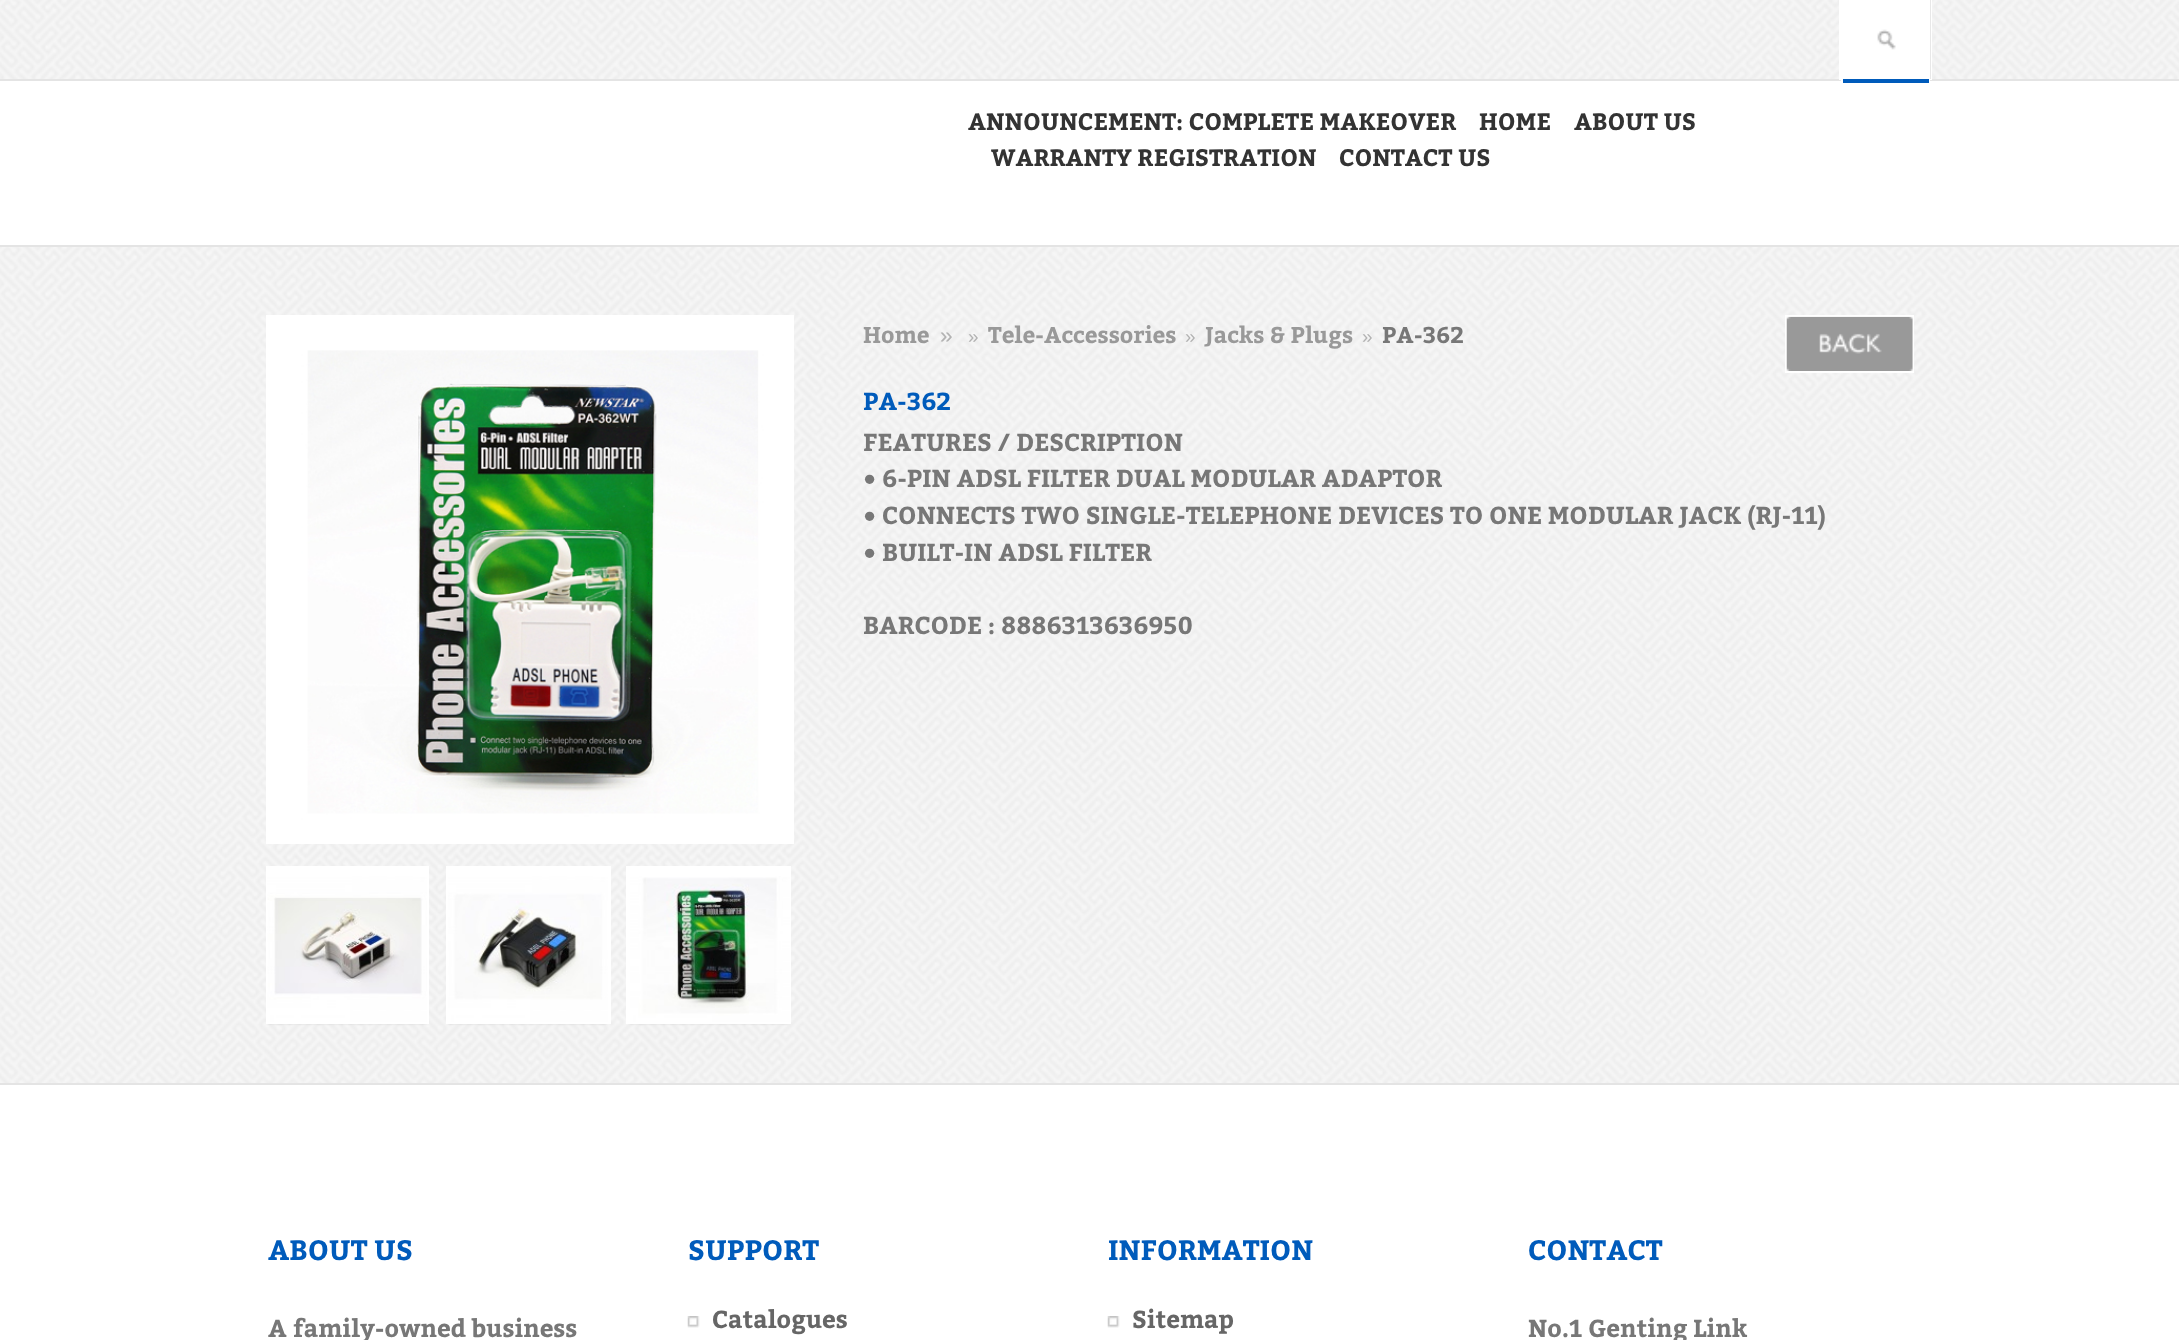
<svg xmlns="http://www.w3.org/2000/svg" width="2179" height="1340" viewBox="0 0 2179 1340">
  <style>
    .t1 { font: bold 23.6px Bitter; fill: #333; }
    .t2 { font: bold 22.75px Bitter; fill: #999; }
    .t3 { font: 22.75px Liberation Sans; fill: #b2b2b2; }
    .t4 { font: 19px Liberation Sans; fill: #b2b2b2; }
    .t5 { font: bold 22.75px Bitter; fill: #777; }
    .t6 { font: bold 24.5px Bitter; fill: #005bbb; }
    .t7 { font: bold 24.5px Bitter; fill: #777; }
    .t8 { font: bold 28px Bitter; fill: #005bbb; }
    .t9 { font: bold 24.5px Bitter; fill: #666; }
  </style>
  <rect width="100%" height="100%" fill="#fff"/>
  <image x="0" y="0" width="2179" height="79" href="images/1.png"/>
  <rect x="0" y="79" width="2179" height="2" fill="#e4e4e4"/>
  <image x="1839" y="0" width="93" height="80" href="images/2.png"/>
  <rect x="1930" y="0" width="1" height="79" fill="#e8e8e8"/>
  <image x="1841" y="0" width="89" height="79" href="images/3.png"/>
  <image x="1841" y="79" width="89" height="3" href="images/4.png"/>
  <rect x="1843" y="79" width="86" height="4" fill="#005bbb"/>
  <text x="968" y="130" class="t1">ANNOUNCEMENT: COMPLETE MAKEOVER</text>
  <text x="1479" y="130" class="t1">HOME</text>
  <text x="1574" y="130" class="t1">ABOUT US</text>
  <text x="991" y="166" class="t1">WARRANTY REGISTRATION</text>
  <text x="1339" y="166" class="t1">CONTACT US</text>
  <image x="0" y="247" width="2179" height="836" href="images/5.png"/>
  <rect x="0" y="245" width="2179" height="2" fill="#e4e4e4"/>
  <rect x="0" y="1083" width="2179" height="2" fill="#e4e4e4"/>
  <image x="266" y="315" width="528" height="529" href="images/6.png"/>
  <rect x="268" y="870" width="159" height="154" fill="#0000001a" filter="blur(1px)"/>
  <image x="266" y="866" width="163" height="158" href="images/7.png"/>
  <rect x="448" y="870" width="159" height="154" fill="#0000001a" filter="blur(1px)"/>
  <image x="446" y="866" width="165" height="158" href="images/8.png"/>
  <rect x="630" y="870" width="159" height="154" fill="#0000001a" filter="blur(1px)"/>
  <image x="626" y="866" width="165" height="158" href="images/9.png"/>
  <text x="863" y="343" class="t2">Home</text>
  <text x="940" y="343" class="t3">»</text>
  <text x="968" y="343" class="t4">»</text>
  <text x="988" y="343" class="t2">Tele-Accessories</text>
  <text x="1185" y="343" class="t4">»</text>
  <text x="1205" y="343" class="t2">Jacks &amp; Plugs</text>
  <text x="1362" y="343" class="t4">»</text>
  <text x="1382" y="343" class="t5">PA-362</text>
  <text x="863" y="410" class="t6">PA-362</text>
  <text x="863" y="451" class="t7">FEATURES / DESCRIPTION</text>
  <text x="863" y="487" class="t7">• 6-PIN ADSL FILTER DUAL MODULAR ADAPTOR</text>
  <text x="863" y="524" class="t7">• CONNECTS TWO SINGLE-TELEPHONE DEVICES TO ONE MODULAR JACK (RJ-11)</text>
  <text x="863" y="561" class="t7">• BUILT-IN ADSL FILTER</text>
  <text x="863" y="634" class="t7">BARCODE : 8886313636950</text>
  <image x="1785" y="315" width="129" height="58" href="images/10.png"/>
  <text x="268" y="1260" class="t8">ABOUT US</text>
  <text x="268" y="1337" class="t7">A family-owned business</text>
  <text x="688" y="1260" class="t8">SUPPORT</text>
  <image x="687" y="1316" width="13" height="12" href="images/11.png"/>
  <text x="712" y="1328" class="t9">Catalogues</text>
  <text x="1108" y="1260" class="t8">INFORMATION</text>
  <image x="1107" y="1316" width="13" height="12" href="images/12.png"/>
  <text x="1132" y="1328" class="t9">Sitemap</text>
  <text x="1528" y="1260" class="t8">CONTACT</text>
  <text x="1528" y="1337" class="t7">No.1 Genting Link</text>
</svg>
